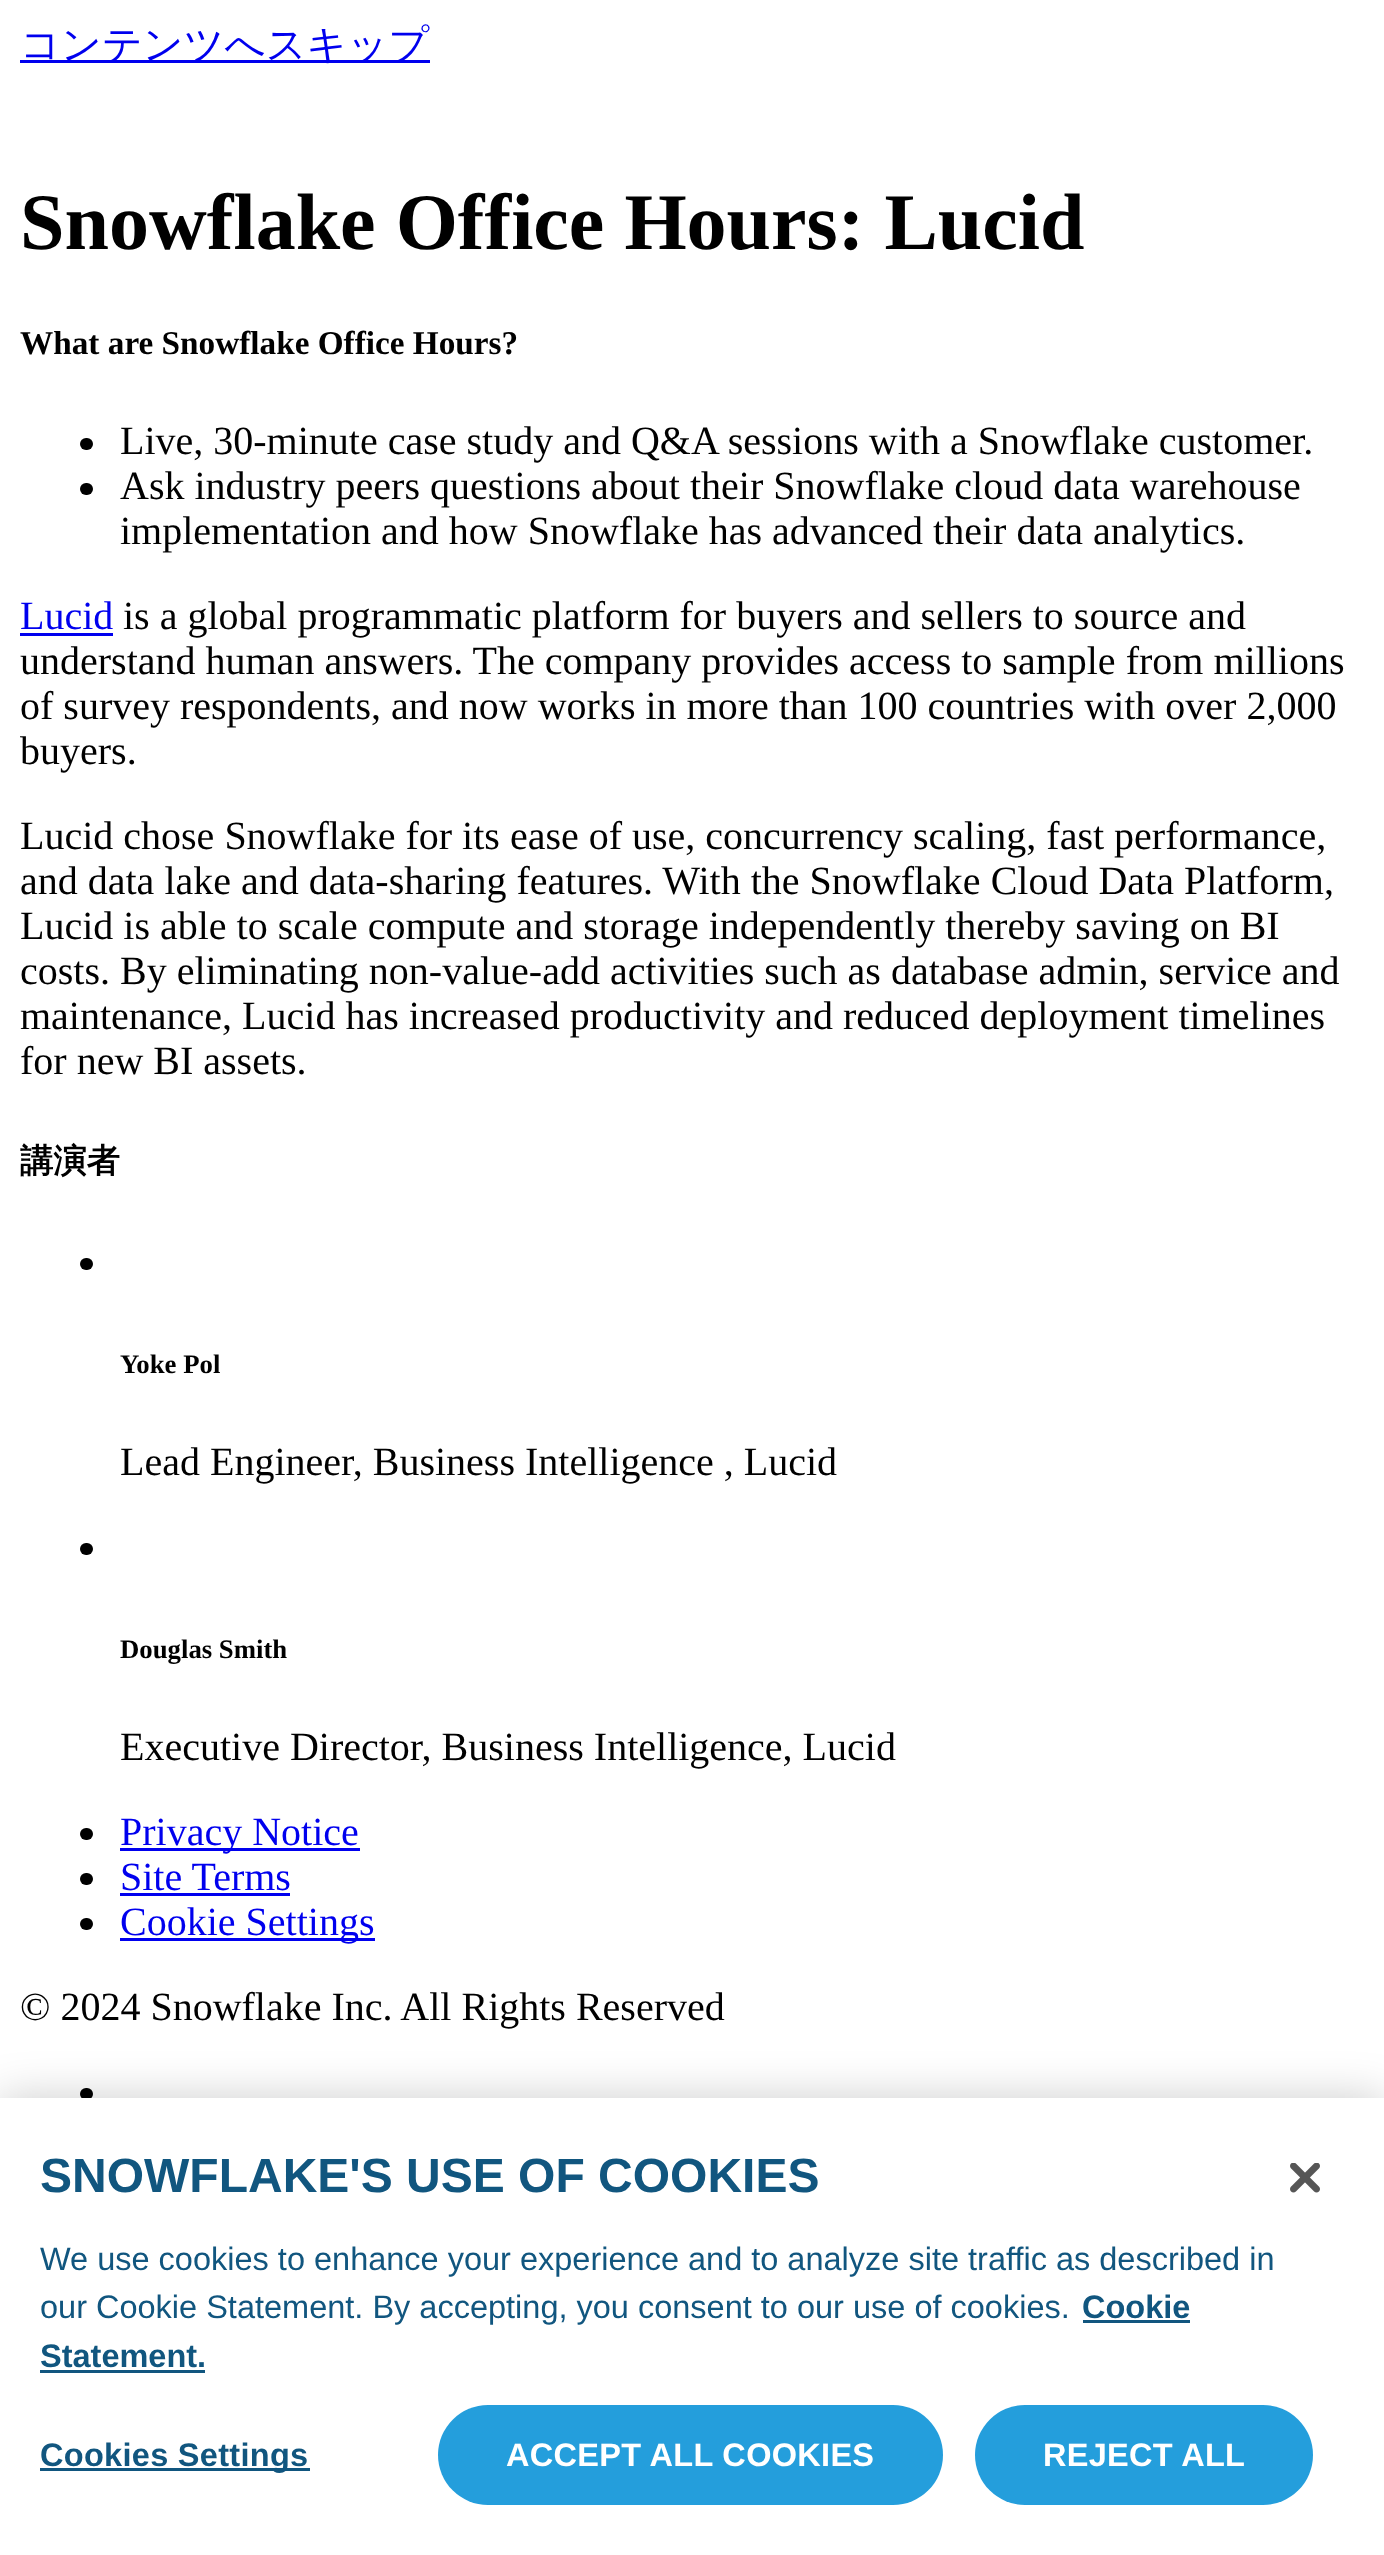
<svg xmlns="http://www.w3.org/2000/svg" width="1384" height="2555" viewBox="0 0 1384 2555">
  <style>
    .t1 { font: 500 40px WenQuanYi Zen Hei; fill: #00e; }
    .t2 { font: bold 80px Liberation Serif; fill: #000; }
    .t3 { font: bold 33.25px Liberation Serif; fill: #000; }
    .t4 { font: 40px Liberation Serif; fill: #000; }
    .t5 { font: 40px Liberation Serif; fill: #00e; }
    .t6 { font: bold 33.25px WenQuanYi Zen Hei; fill: #000; }
    .t7 { font: bold 26.75px Liberation Serif; fill: #000; }
    .t8 { font: bold 48px Liberation Sans; fill: #11567f; }
    .t9 { font: 32.5px Liberation Sans; fill: #11567f; }
    .t10 { font: bold 32.5px Liberation Sans; fill: #11567f; }
    .t11 { font: bold 32.5px Liberation Sans; letter-spacing: 0.3px; fill: #11567f; }
    .t12 { font: bold 32.5px Liberation Sans; letter-spacing: 0.3px; fill: #fff; }
  </style>
  <rect width="100%" height="100%" fill="#fff"/>
  <rect x="20" y="60" width="410" height="3" fill="#00e"/>
  <text x="20" y="58" class="t1">コンテンツへスキップ</text>
  <text x="20" y="249" class="t2">Snowflake Office Hours: Lucid</text>
  <text x="20" y="354" class="t3">What are Snowflake Office Hours?</text>
  <rect x="80" y="438" width="13" height="12" rx="6" fill="#000"/>
  <text x="120" y="454" class="t4">Live, 30-minute case study and Q&amp;A sessions with a Snowflake customer.</text>
  <rect x="80" y="483" width="13" height="12" rx="6" fill="#000"/>
  <text x="120" y="499" class="t4">Ask industry peers questions about their Snowflake cloud data warehouse</text>
  <text x="120" y="544" class="t4">implementation and how Snowflake has advanced their data analytics.</text>
  <text x="20" y="629" class="t5">Lucid</text>
  <rect x="20" y="633" width="93" height="3" fill="#00e"/>
  <text x="123" y="629" class="t4">is a global programmatic platform for buyers and sellers to source and</text>
  <text x="20" y="674" class="t4">understand human answers. The company provides access to sample from millions</text>
  <text x="20" y="719" class="t4">of survey respondents, and now works in more than 100 countries with over 2,000</text>
  <text x="20" y="764" class="t4">buyers.</text>
  <text x="20" y="849" class="t4">Lucid chose Snowflake for its ease of use, concurrency scaling, fast performance,</text>
  <text x="20" y="894" class="t4">and data lake and data-sharing features. With the Snowflake Cloud Data Platform,</text>
  <text x="20" y="939" class="t4">Lucid is able to scale compute and storage independently thereby saving on BI</text>
  <text x="20" y="984" class="t4">costs. By eliminating non-value-add activities such as database admin, service and</text>
  <text x="20" y="1029" class="t4">maintenance, Lucid has increased productivity and reduced deployment timelines</text>
  <text x="20" y="1074" class="t4">for new BI assets.</text>
  <text x="20" y="1172" class="t6">講演者</text>
  <rect x="80" y="1258" width="13" height="12" rx="6" fill="#000"/>
  <text x="120" y="1373" class="t7">Yoke Pol</text>
  <text x="120" y="1475" class="t4">Lead Engineer, Business Intelligence , Lucid</text>
  <rect x="80" y="1543" width="13" height="12" rx="6" fill="#000"/>
  <text x="120" y="1658" class="t7">Douglas Smith</text>
  <text x="120" y="1760" class="t4">Executive Director, Business Intelligence, Lucid</text>
  <rect x="80" y="1828" width="13" height="12" rx="6" fill="#000"/>
  <rect x="120" y="1848" width="240" height="3" fill="#00e"/>
  <text x="120" y="1845" class="t5">Privacy Notice</text>
  <rect x="80" y="1873" width="13" height="12" rx="6" fill="#000"/>
  <text x="120" y="1890" class="t5">Site Terms</text>
  <rect x="120" y="1893" width="170" height="3" fill="#00e"/>
  <rect x="80" y="1918" width="13" height="12" rx="6" fill="#000"/>
  <rect x="120" y="1938" width="255" height="3" fill="#00e"/>
  <text x="120" y="1935" class="t5">Cookie Settings</text>
  <text x="20" y="2020" class="t4">© 2024 Snowflake Inc. All Rights Reserved</text>
  <rect x="80" y="2088" width="13" height="12" rx="6" fill="#000"/>
  <rect x="0" y="2098" width="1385" height="457" fill="#00000033" filter="blur(22.5px)"/>
  <rect x="0" y="2098" width="1384" height="457" fill="#fff"/>
  <text x="40" y="2192" class="t8">SNOWFLAKE'S USE OF COOKIES</text>
  <text x="40" y="2270" class="t9">We use cookies to enhance your experience and to analyze site traffic as described in</text>
  <text x="40" y="2318" class="t9">our Cookie Statement. By accepting, you consent to our use of cookies.</text>
  <text x="1082" y="2318" class="t10">Cookie</text>
  <rect x="1083" y="2320" width="107" height="3" fill="#11567f"/>
  <text x="40" y="2367" class="t10">Statement.</text>
  <rect x="40" y="2370" width="165" height="3" fill="#11567f"/>
  <rect x="40" y="2468" width="270" height="3" fill="#11567f"/>
  <text x="40" y="2466" class="t11">Cookies Settings</text>
  <rect x="438" y="2405" width="505" height="100" rx="50" fill="#249edc"/>
  <text x="506" y="2466" class="t12">ACCEPT ALL COOKIES</text>
  <rect x="975" y="2405" width="338" height="100" rx="50" fill="#249edc"/>
  <text x="1043" y="2466" class="t12">REJECT ALL</text>
  <image x="1290" y="2163" width="30" height="30" href="images/1.png"/>
</svg>
